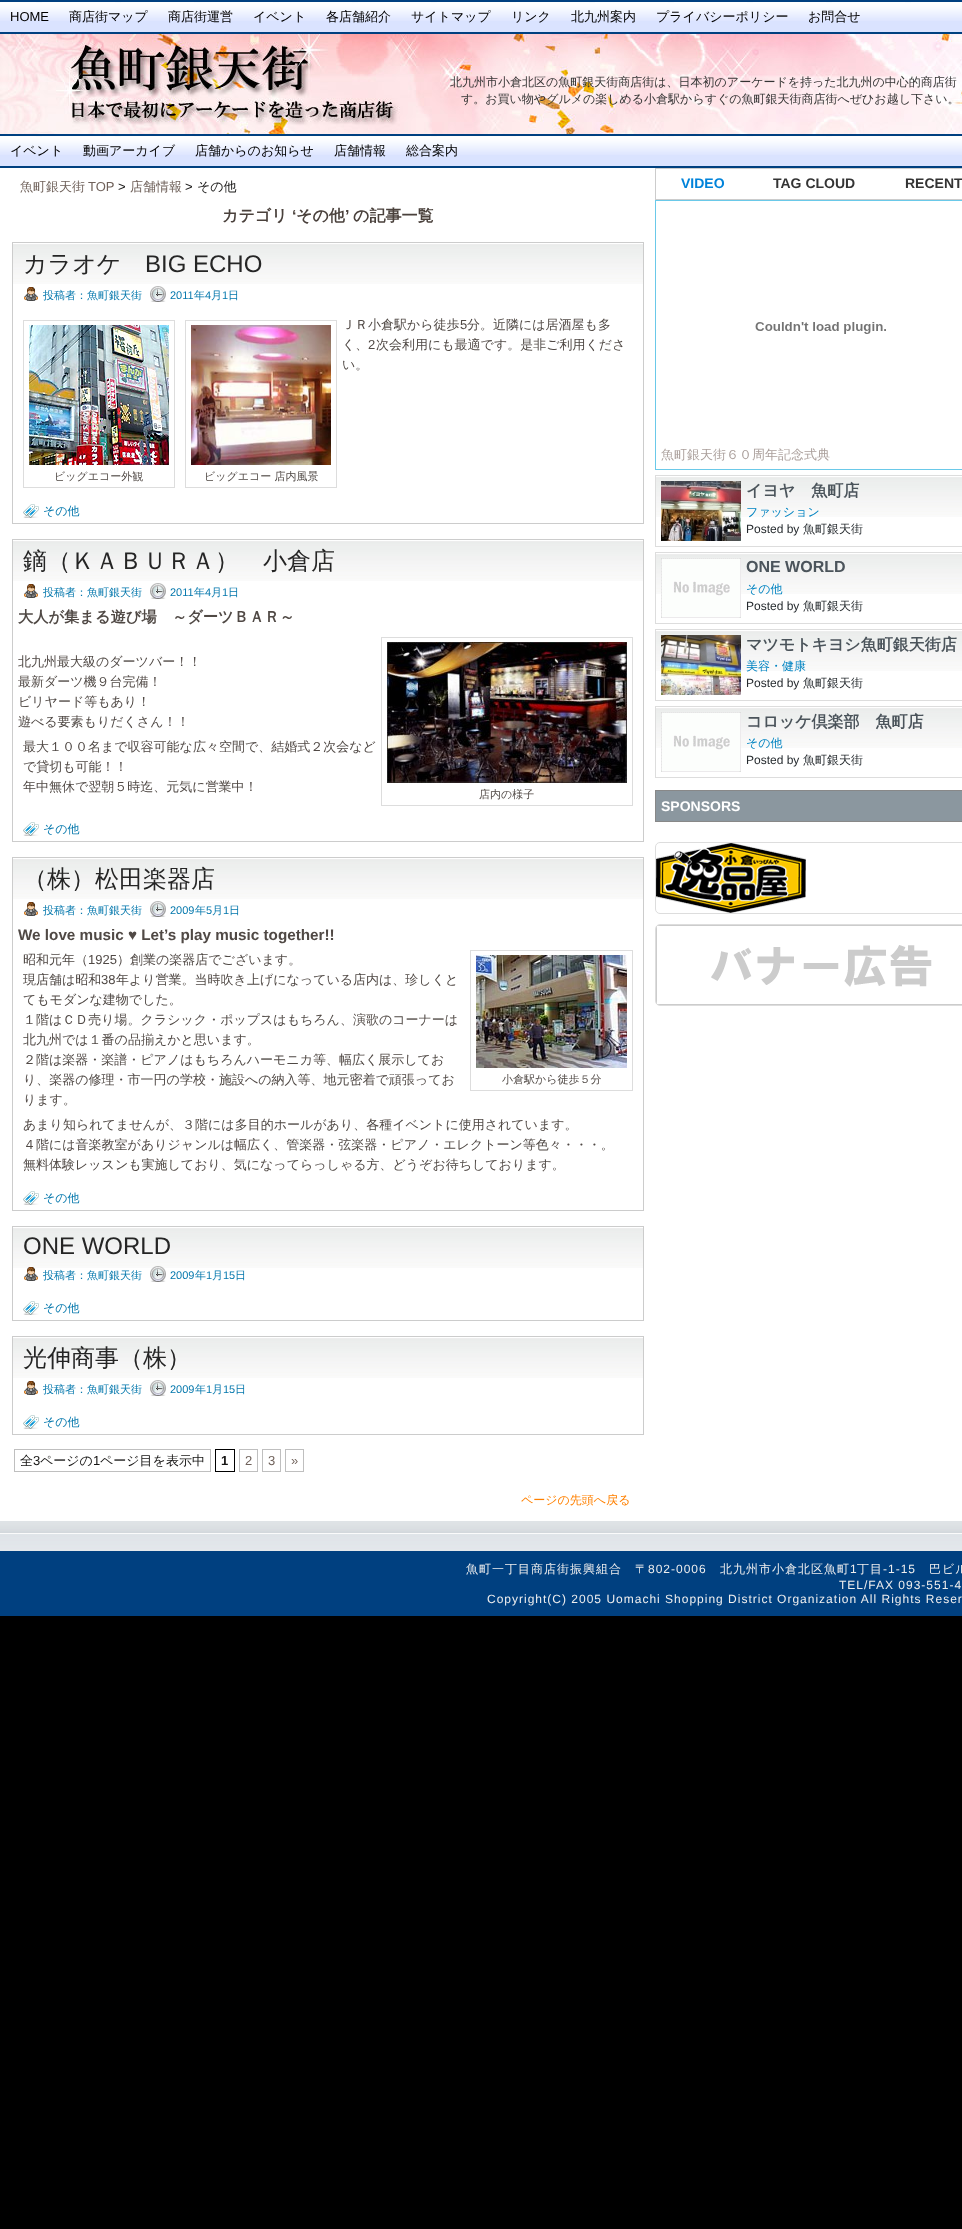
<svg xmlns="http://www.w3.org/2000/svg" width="962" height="2229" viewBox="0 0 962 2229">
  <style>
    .t1 { font: 13px Liberation Sans; fill: #000; }
    .t2 { font: 500 13px WenQuanYi Zen Hei; fill: #000; }
    .t3 { font: 500 12px WenQuanYi Zen Hei; fill: #343434; }
    .t4 { font: 500 13px WenQuanYi Zen Hei; fill: #6f615a; }
    .t5 { font: 13px Liberation Sans; fill: #6f615a; }
    .t6 { font: 13px Liberation Sans; fill: #161514; }
    .t7 { font: 500 13px WenQuanYi Zen Hei; fill: #161514; }
    .t8 { font: bold 16px WenQuanYi Zen Hei; fill: #4a413c; }
    .t9 { font: bold 16px Liberation Sans; fill: #4a413c; }
    .t10 { font: 500 24px WenQuanYi Zen Hei; fill: #252525; }
    .t11 { font: 24px Liberation Sans; fill: #252525; }
    .t12 { font: 500 11px WenQuanYi Zen Hei; fill: #0578ad; }
    .t13 { font: 11px Liberation Sans; fill: #0578ad; }
    .t14 { font: 500 13px WenQuanYi Zen Hei; fill: #504945; }
    .t15 { font: 13px Liberation Sans; fill: #504945; }
    .t16 { font: 500 11px WenQuanYi Zen Hei; fill: #504945; }
    .t17 { font: 500 12px WenQuanYi Zen Hei; fill: #0578ad; }
    .t18 { font: bold 15.25px WenQuanYi Zen Hei; fill: #504945; }
    .t19 { font: bold 15.25px Liberation Sans; fill: #504945; }
    .t20 { font: bold 13px Liberation Sans; fill: #161514; }
    .t21 { font: 500 12px WenQuanYi Zen Hei; fill: #ff8000; }
    .t22 { font: bold 14px Liberation Sans; fill: #0083da; }
    .t23 { font: bold 14px Liberation Sans; fill: #343434; }
    .t24 { font: 500 13px WenQuanYi Zen Hei; fill: #aa9f9b; }
    .t25 { font: bold 16px WenQuanYi Zen Hei; fill: #4b545b; }
    .t26 { font: 500 12px WenQuanYi Zen Hei; fill: #0284c2; }
    .t27 { font: 12px Liberation Sans; fill: #262b2f; }
    .t28 { font: 500 12px WenQuanYi Zen Hei; fill: #262b2f; }
    .t29 { font: bold 16px Liberation Sans; fill: #4b545b; }
    .t30 { font: bold 14px Liberation Sans; fill: #fff; }
    .t31 { font: 500 12px WenQuanYi Zen Hei; letter-spacing: 1px; fill: #eee; }
    .t32 { font: 12px Liberation Sans; letter-spacing: 1px; fill: #eee; }
  </style>
  <rect width="100%" height="100%" fill="#000"/>
  <rect x="0" y="168" width="962" height="1353" fill="#fff"/>
  <rect x="0" y="21" width="962" height="11" fill="#dae3ff"/>
  <image x="0" y="2" width="962" height="19" href="images/1.png"/>
  <rect x="0" y="0" width="962" height="2" fill="#004080"/>
  <rect x="0" y="32" width="962" height="2" fill="#004080"/>
  <text x="10" y="21" class="t1">HOME</text>
  <text x="69" y="21" class="t2">商店街マップ</text>
  <text x="168" y="21" class="t2">商店街運営</text>
  <text x="253" y="21" class="t2">イベント</text>
  <text x="326" y="21" class="t2">各店舗紹介</text>
  <text x="411" y="21" class="t2">サイトマップ</text>
  <text x="511" y="21" class="t2">リンク</text>
  <text x="571" y="21" class="t2">北九州案内</text>
  <text x="656" y="21" class="t2">プライバシーポリシー</text>
  <text x="808" y="21" class="t2">お問合せ</text>
  <image x="0" y="34" width="962" height="100" href="images/2.png"/>
  <text x="450" y="86" class="t3">北九州市小倉北区の魚町銀天街商店街は、日本初のアーケードを持った北九州の中心的商店街</text>
  <text x="461" y="103" class="t3">す。お買い物やグルメの楽しめる小倉駅からすぐの魚町銀天街商店街へぜひお越し下さい。</text>
  <rect x="0" y="155" width="962" height="11" fill="#dae3ff"/>
  <image x="0" y="136" width="962" height="19" href="images/1.png"/>
  <rect x="0" y="134" width="962" height="2" fill="#004080"/>
  <rect x="0" y="166" width="962" height="2" fill="#004080"/>
  <text x="10" y="155" class="t2">イベント</text>
  <text x="83" y="155" class="t2">動画アーカイブ</text>
  <text x="195" y="155" class="t2">店舗からのお知らせ</text>
  <text x="334" y="155" class="t2">店舗情報</text>
  <text x="406" y="155" class="t2">総合案内</text>
  <text x="20" y="191" class="t4">魚町銀天街</text>
  <text x="88" y="191" class="t5">TOP</text>
  <text x="118" y="191" class="t6">&gt;</text>
  <text x="130" y="191" class="t4">店舗情報</text>
  <text x="185" y="191" class="t6">&gt;</text>
  <text x="197" y="191" class="t7">その他</text>
  <text x="222" y="221" class="t8">カテゴリ</text>
  <text x="292" y="221" class="t9">‘</text>
  <text x="296" y="221" class="t8">その他</text>
  <text x="345" y="221" class="t9">’</text>
  <text x="353" y="221" class="t8">の記事一覧</text>
  <image x="13" y="244" width="630" height="40" href="images/3.png"/>
  <rect x="12.5" y="242.5" width="631" height="281" fill="none" stroke="#ccc"/>
  <text x="23" y="272" class="t10">カラオケ</text>
  <text x="145" y="272" class="t11">BIG ECHO</text>
  <image x="24" y="287" width="14" height="14" href="images/4.png"/>
  <text x="43" y="299" class="t12">投稿者：魚町銀天街</text>
  <image x="150" y="286" width="16" height="16" href="images/5.png"/>
  <text x="170" y="299" class="t13">2011</text>
  <text x="194" y="299" class="t12">年</text>
  <text x="205" y="299" class="t13">4</text>
  <text x="211" y="299" class="t12">月</text>
  <text x="222" y="299" class="t13">1</text>
  <text x="228" y="299" class="t12">日</text>
  <text x="342" y="329" class="t14">ＪＲ小倉駅から徒歩</text>
  <text x="460" y="329" class="t15">5</text>
  <text x="467" y="329" class="t14">分。近隣には居酒屋も多</text>
  <text x="342" y="349" class="t14">く、</text>
  <text x="368" y="349" class="t15">2</text>
  <text x="376" y="349" class="t14">次会利用にも最適です。是非ご利用くださ</text>
  <text x="342" y="369" class="t14">い。</text>
  <rect x="23.5" y="320.5" width="151" height="167" fill="none" stroke="#ddd"/>
  <image x="29" y="325" width="140" height="140" href="images/6.png"/>
  <text x="54" y="480" class="t16">ビッグエコー外観</text>
  <rect x="185.5" y="320.5" width="151" height="167" fill="none" stroke="#ddd"/>
  <image x="191" y="325" width="140" height="140" href="images/7.png"/>
  <text x="204" y="480" class="t16">ビッグエコー 店内風景</text>
  <image x="23" y="504" width="16" height="14" href="images/8.png"/>
  <text x="43" y="515" class="t17">その他</text>
  <image x="13" y="541" width="630" height="40" href="images/3.png"/>
  <rect x="12.5" y="539.5" width="631" height="302" fill="none" stroke="#ccc"/>
  <text x="23" y="569" class="t10">鏑（ＫＡＢＵＲＡ）　小倉店</text>
  <image x="24" y="584" width="14" height="14" href="images/4.png"/>
  <text x="43" y="596" class="t12">投稿者：魚町銀天街</text>
  <image x="150" y="583" width="16" height="16" href="images/5.png"/>
  <text x="170" y="596" class="t13">2011</text>
  <text x="194" y="596" class="t12">年</text>
  <text x="205" y="596" class="t13">4</text>
  <text x="211" y="596" class="t12">月</text>
  <text x="222" y="596" class="t13">1</text>
  <text x="228" y="596" class="t12">日</text>
  <text x="18" y="622" class="t18">大人が集まる遊び場　～ダーツＢＡＲ～</text>
  <text x="18" y="666" class="t14">北九州最大級のダーツバー！！</text>
  <text x="18" y="686" class="t14">最新ダーツ機９台完備！</text>
  <text x="18" y="706" class="t14">ビリヤード等もあり！</text>
  <text x="18" y="726" class="t14">遊べる要素もりだくさん！！</text>
  <text x="23" y="751" class="t14">最大１００名まで収容可能な広々空間で、結婚式２次会など</text>
  <text x="23" y="771" class="t14">で貸切も可能！！</text>
  <text x="23" y="791" class="t14">年中無休で翌朝５時迄、元気に営業中！</text>
  <rect x="381.5" y="637.5" width="251" height="168" fill="none" stroke="#ddd"/>
  <image x="387" y="642" width="240" height="141" href="images/9.png"/>
  <text x="479" y="798" class="t16">店内の様子</text>
  <image x="23" y="822" width="16" height="14" href="images/8.png"/>
  <text x="43" y="833" class="t17">その他</text>
  <image x="13" y="859" width="630" height="40" href="images/3.png"/>
  <rect x="12.5" y="857.5" width="631" height="353" fill="none" stroke="#ccc"/>
  <text x="23" y="887" class="t10">（株）松田楽器店</text>
  <image x="24" y="902" width="14" height="14" href="images/4.png"/>
  <text x="43" y="914" class="t12">投稿者：魚町銀天街</text>
  <image x="150" y="901" width="16" height="16" href="images/5.png"/>
  <text x="170" y="914" class="t13">2009</text>
  <text x="195" y="914" class="t12">年</text>
  <text x="206" y="914" class="t13">5</text>
  <text x="212" y="914" class="t12">月</text>
  <text x="223" y="914" class="t13">1</text>
  <text x="229" y="914" class="t12">日</text>
  <text x="18" y="940" class="t19">We love music ♥ Let’s play music together!!</text>
  <text x="23" y="964" class="t14">昭和元年（</text>
  <text x="88" y="964" class="t15">1925</text>
  <text x="117" y="964" class="t14">）創業の楽器店でございます。</text>
  <text x="23" y="984" class="t14">現店舗は昭和</text>
  <text x="101" y="984" class="t15">38</text>
  <text x="116" y="984" class="t14">年より営業。当時吹き上げになっている店内は、珍しくと</text>
  <text x="23" y="1004" class="t14">てもモダンな建物でした。</text>
  <text x="23" y="1024" class="t14">１階はＣＤ売り場。クラシック・ポップスはもちろん、演歌のコーナーは</text>
  <text x="23" y="1044" class="t14">北九州では１番の品揃えかと思います。</text>
  <text x="23" y="1064" class="t14">２階は楽器・楽譜・ピアノはもちろんハーモニカ等、幅広く展示してお</text>
  <text x="23" y="1084" class="t14">り、楽器の修理・市一円の学校・施設への納入等、地元密着で頑張ってお</text>
  <text x="23" y="1104" class="t14">ります。</text>
  <rect x="470.5" y="950.5" width="162" height="140" fill="none" stroke="#ddd"/>
  <image x="476" y="955" width="151" height="113" href="images/10.png"/>
  <text x="502" y="1083" class="t16">小倉駅から徒歩５分</text>
  <text x="23" y="1129" class="t14">あまり知られてませんが、３階には多目的ホールがあり、各種イベントに使用されています。</text>
  <text x="23" y="1149" class="t14">４階には音楽教室がありジャンルは幅広く、管楽器・弦楽器・ピアノ・エレクトーン等色々・・・。</text>
  <text x="23" y="1169" class="t14">無料体験レッスンも実施しており、気になってらっしゃる方、どうぞお待ちしております。</text>
  <image x="23" y="1191" width="16" height="14" href="images/8.png"/>
  <text x="43" y="1202" class="t17">その他</text>
  <image x="13" y="1228" width="630" height="40" href="images/3.png"/>
  <rect x="12.5" y="1226.5" width="631" height="94" fill="none" stroke="#ccc"/>
  <text x="23" y="1254" class="t11">ONE WORLD</text>
  <image x="24" y="1267" width="14" height="14" href="images/11.png"/>
  <text x="43" y="1279" class="t12">投稿者：魚町銀天街</text>
  <image x="150" y="1266" width="16" height="16" href="images/12.png"/>
  <text x="170" y="1279" class="t13">2009</text>
  <text x="195" y="1279" class="t12">年</text>
  <text x="206" y="1279" class="t13">1</text>
  <text x="212" y="1279" class="t12">月</text>
  <text x="223" y="1279" class="t13">15</text>
  <text x="235" y="1279" class="t12">日</text>
  <image x="23" y="1301" width="16" height="14" href="images/8.png"/>
  <text x="43" y="1312" class="t17">その他</text>
  <image x="13" y="1338" width="630" height="40" href="images/3.png"/>
  <rect x="12.5" y="1336.5" width="631" height="98" fill="none" stroke="#ccc"/>
  <text x="23" y="1366" class="t10">光伸商事（株）</text>
  <image x="24" y="1381" width="14" height="14" href="images/4.png"/>
  <text x="43" y="1393" class="t12">投稿者：魚町銀天街</text>
  <image x="150" y="1380" width="16" height="16" href="images/5.png"/>
  <text x="170" y="1393" class="t13">2009</text>
  <text x="195" y="1393" class="t12">年</text>
  <text x="206" y="1393" class="t13">1</text>
  <text x="212" y="1393" class="t12">月</text>
  <text x="223" y="1393" class="t13">15</text>
  <text x="235" y="1393" class="t12">日</text>
  <image x="23" y="1415" width="16" height="14" href="images/8.png"/>
  <text x="43" y="1426" class="t17">その他</text>
  <rect x="14.5" y="1449.5" width="196" height="22" fill="none" stroke="#bfbfbf"/>
  <text x="20" y="1465" class="t7">全</text>
  <text x="33" y="1465" class="t6">3</text>
  <text x="40" y="1465" class="t7">ページの</text>
  <text x="93" y="1465" class="t6">1</text>
  <text x="100" y="1465" class="t7">ページ目を表示中</text>
  <rect x="215.5" y="1449.5" width="19" height="22" fill="none" stroke="#000"/>
  <text x="221" y="1465" class="t20">1</text>
  <rect x="239.5" y="1449.5" width="18" height="22" fill="none" stroke="#bfbfbf"/>
  <text x="245" y="1465" class="t5">2</text>
  <rect x="262.5" y="1449.5" width="18" height="22" fill="none" stroke="#bfbfbf"/>
  <text x="268" y="1465" class="t5">3</text>
  <rect x="285.5" y="1449.5" width="18" height="22" fill="none" stroke="#bfbfbf"/>
  <text x="291" y="1465" class="t5">»</text>
  <text x="521" y="1504" class="t21">ページの先頭へ戻る</text>
  <rect x="655.5" y="168.5" width="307" height="31" fill="none" stroke="#ccc"/>
  <text x="681" y="188" class="t22">VIDEO</text>
  <text x="773" y="188" class="t23">TAG CLOUD</text>
  <text x="905" y="188" class="t23">RECENT</text>
  <rect x="655.5" y="200.5" width="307" height="269" fill="none" stroke="#6ac9e9"/>
  <image x="755" y="322" width="131" height="12" href="images/13.png"/>
  <text x="661" y="459" class="t24">魚町銀天街６０周年記念式典</text>
  <image x="656" y="477" width="306" height="40" href="images/14.png"/>
  <rect x="655.5" y="475.5" width="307" height="71" fill="none" stroke="#ddd"/>
  <image x="661" y="481" width="80" height="60" href="images/15.png"/>
  <text x="746" y="496" class="t25">イヨヤ　魚町店</text>
  <text x="746" y="516" class="t26">ファッション</text>
  <text x="746" y="533" class="t27">Posted by</text>
  <text x="803" y="533" class="t28">魚町銀天街</text>
  <image x="656" y="554" width="306" height="40" href="images/14.png"/>
  <rect x="655.5" y="552.5" width="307" height="71" fill="none" stroke="#ddd"/>
  <image x="661" y="558" width="80" height="60" href="images/16.png"/>
  <text x="746" y="572" class="t29">ONE WORLD</text>
  <text x="746" y="593" class="t26">その他</text>
  <text x="746" y="610" class="t27">Posted by</text>
  <text x="803" y="610" class="t28">魚町銀天街</text>
  <image x="656" y="631" width="306" height="40" href="images/14.png"/>
  <rect x="655.5" y="629.5" width="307" height="71" fill="none" stroke="#ddd"/>
  <image x="661" y="635" width="80" height="60" href="images/17.png"/>
  <text x="746" y="650" class="t25">マツモトキヨシ魚町銀天街店</text>
  <text x="746" y="670" class="t26">美容・健康</text>
  <text x="746" y="687" class="t27">Posted by</text>
  <text x="803" y="687" class="t28">魚町銀天街</text>
  <image x="656" y="708" width="306" height="40" href="images/14.png"/>
  <rect x="655.5" y="706.5" width="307" height="71" fill="none" stroke="#ddd"/>
  <image x="661" y="712" width="80" height="60" href="images/16.png"/>
  <text x="746" y="727" class="t25">コロッケ倶楽部　魚町店</text>
  <text x="746" y="747" class="t26">その他</text>
  <text x="746" y="764" class="t27">Posted by</text>
  <text x="803" y="764" class="t28">魚町銀天街</text>
  <rect x="655.5" y="790.5" width="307" height="31" fill="#8b979f" stroke="#888"/>
  <text x="661" y="811" class="t30">SPONSORS</text>
  <rect x="655.5" y="842.5" width="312" height="71" rx="4.5" fill="none" stroke="#ddd"/>
  <image x="656" y="843" width="150" height="70" href="images/18.png"/>
  <rect x="655.5" y="924.5" width="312" height="81" rx="4.5" fill="none" stroke="#ddd"/>
  <image x="656" y="925" width="306" height="80" href="images/19.png"/>
  <image x="0" y="1521" width="962" height="30" href="images/20.png"/>
  <rect x="0" y="1551" width="962" height="65" fill="#004080"/>
  <text x="466" y="1573" class="t31">魚町一丁目商店街振興組合　〒</text>
  <text x="648" y="1573" class="t32">802-0006</text>
  <text x="720" y="1573" class="t31">北九州市小倉北区魚町</text>
  <text x="850" y="1573" class="t32">1</text>
  <text x="857" y="1573" class="t31">丁目</text>
  <text x="883" y="1573" class="t32">-1-15</text>
  <text x="929" y="1573" class="t31">巴ビル</text>
  <text x="839" y="1589" class="t32">TEL/FAX 093-551-4</text>
  <text x="487" y="1603" class="t32">Copyright(C) 2005 Uomachi Shopping District Organization All Rights Reser</text>
</svg>
